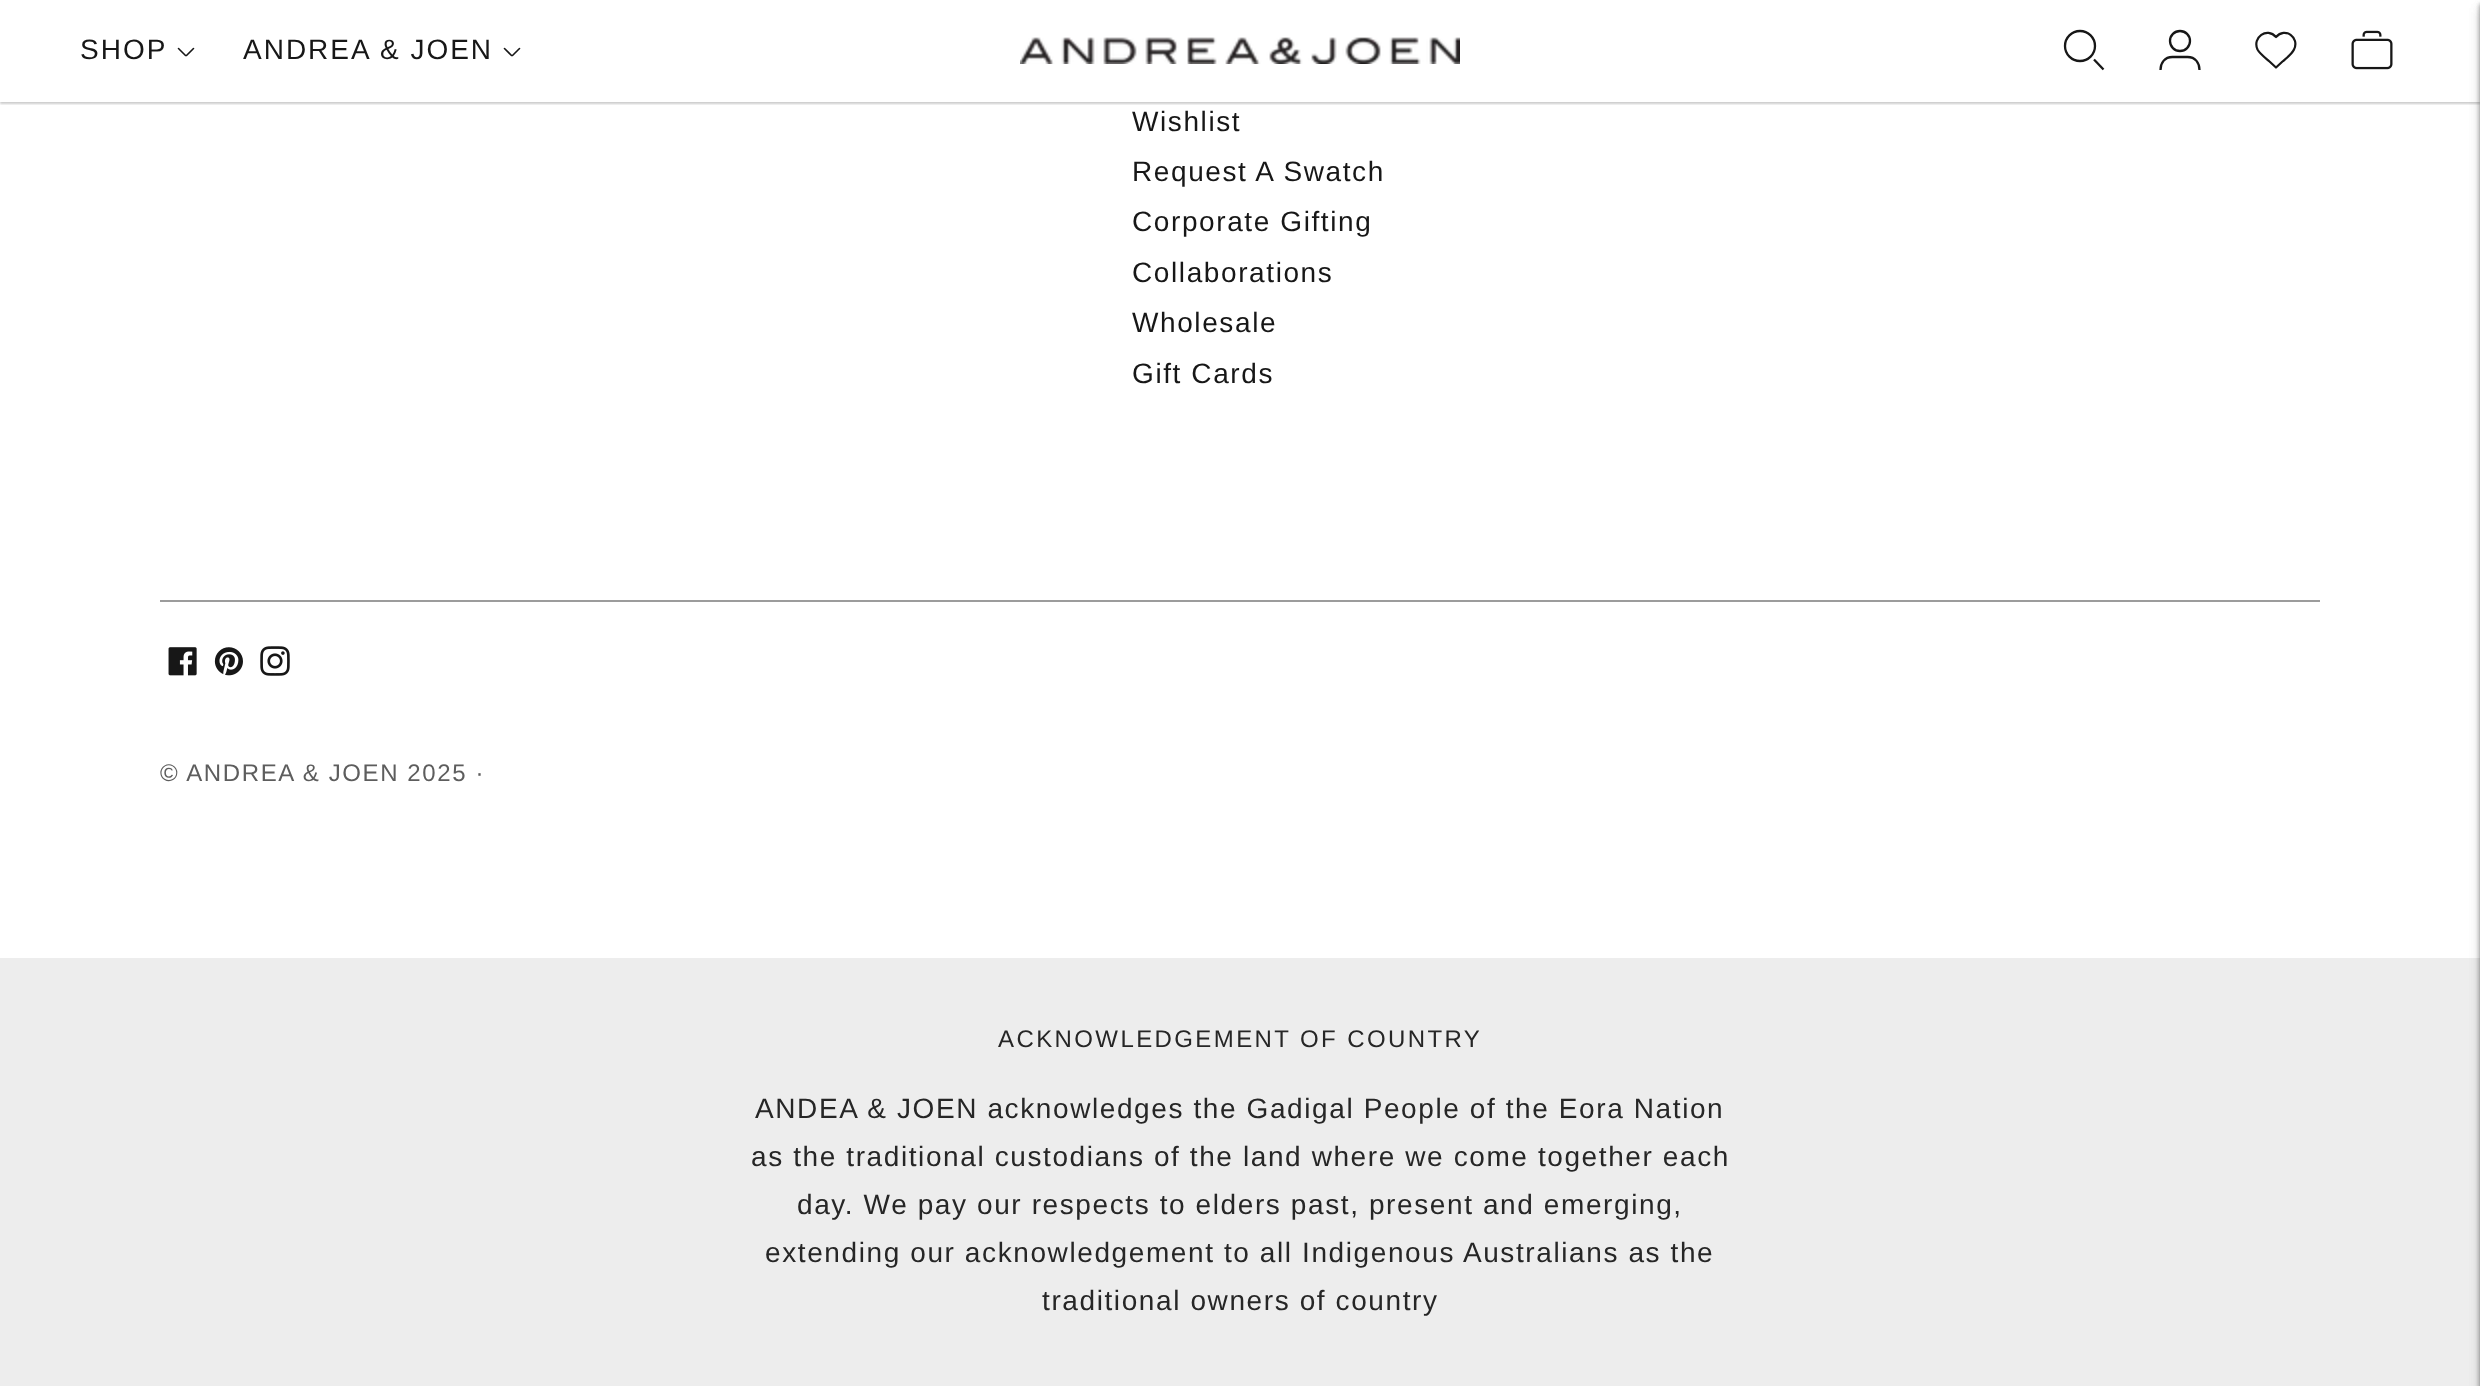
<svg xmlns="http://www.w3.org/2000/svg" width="2480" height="1386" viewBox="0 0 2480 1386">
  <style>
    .t1 { font: 28px Liberation Sans; letter-spacing: 2px; fill: #171717; }
    .t2 { font: 28px Liberation Sans; letter-spacing: 1.6px; fill: #171717; }
    .t3 { font: 24px Liberation Sans; letter-spacing: 1.6px; fill: #5d5d5d; }
    .t4 { font: 24px Liberation Sans; letter-spacing: 2.4px; fill: #262626; }
    .t5 { font: 28px Liberation Sans; letter-spacing: 1.6px; fill: #262626; }
  </style>
  <defs>
    <clipPath id="clip1"><rect x="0" y="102" width="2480" height="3"/></clipPath>
  </defs>
  <rect width="100%" height="100%" fill="#fff"/>
  <rect x="0" y="958" width="2480" height="428" fill="#ededed"/>
  <rect x="2480" y="8" width="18" height="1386" fill="#0000001a" filter="blur(6px)"/>
  <rect x="2480" y="4" width="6" height="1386" fill="#00000026" filter="blur(2px)"/>
  <rect x="2480" y="8" width="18" height="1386" fill="#0000001a" filter="blur(6px)"/>
  <rect x="2480" y="4" width="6" height="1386" fill="#00000026" filter="blur(2px)"/>
  <g clip-path="url(#clip1)">
    <rect x="0" y="2" width="2480" height="102" fill="#00000033" filter="blur(1px)"/>
  </g>
  <text x="80" y="59" class="t1">SHOP</text>
  <path d="M178.5 48.5L185.5 55.5C186 55.5 186 55.5 186.5 55.5L193.5 48.5" fill="none" stroke="#171717" stroke-width="1.6" stroke-linecap="round" stroke-linejoin="round"/>
  <text x="243" y="59" class="t1">ANDREA &amp; JOEN</text>
  <path d="M504.5 48.5L511.5 55.5C512 55.5 512 55.5 512.5 55.5L519.5 48.5" fill="none" stroke="#171717" stroke-width="1.6" stroke-linecap="round" stroke-linejoin="round"/>
  <image x="1020" y="37" width="440" height="27" href="images/1.png"/>
  <circle cx="2080" cy="46" r="15" fill="none" stroke="#171717" stroke-width="2.3"/>
  <path d="M2094 59.5L2103.5 69.5" fill="none" stroke="#171717" stroke-width="2.3"/>
  <circle cx="2180" cy="41" r="10" fill="none" stroke="#171717" stroke-width="2.3"/>
  <path d="M2160.5 70C2160.5 63 2164.5 57 2172.5 57H2187.5C2195.5 57 2199.5 63 2199.5 70" fill="none" stroke="#171717" stroke-width="2.3"/>
  <path d="M2276 37C2267 26.5 2252 37.5 2257.5 49.5C2260 54 2265.5 58 2269.5 61.5L2276 67.5L2282.5 61.5C2286.5 58 2292 54 2294 49.5C2300 37.5 2285 26.5 2276 37Z" fill="none" stroke="#171717" stroke-width="2.2" stroke-linecap="round" stroke-linejoin="round"/>
  <image x="2351" y="30" width="42" height="40" href="images/2.png"/>
  <rect x="2480" y="4" width="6" height="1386" fill="#00000026" filter="blur(2px)"/>
  <text x="1132" y="131" class="t2">Wishlist</text>
  <text x="1132" y="181" class="t2">Request A Swatch</text>
  <text x="1132" y="231" class="t2">Corporate Gifting</text>
  <text x="1132" y="282" class="t2">Collaborations</text>
  <text x="1132" y="332" class="t2">Wholesale</text>
  <text x="1132" y="383" class="t2">Gift Cards</text>
  <rect x="160" y="600" width="2160" height="2" fill="#9c9c9c"/>
  <image x="168" y="647" width="29" height="29" href="images/3.png"/>
  <image x="214" y="647" width="29" height="29" href="images/4.png"/>
  <image x="260" y="646" width="30" height="30" href="images/5.png"/>
  <text x="160" y="781" class="t3">© ANDREA &amp; JOEN 2025 ·</text>
  <text x="998" y="1047" class="t4">ACKNOWLEDGEMENT OF COUNTRY</text>
  <text x="755" y="1118" class="t5">ANDEA &amp; JOEN acknowledges the Gadigal People of the Eora Nation</text>
  <text x="751" y="1166" class="t5">as the traditional custodians of the land where we come together each</text>
  <text x="797" y="1214" class="t5">day. We pay our respects to elders past, present and emerging,</text>
  <text x="765" y="1262" class="t5">extending our acknowledgement to all Indigenous Australians as the</text>
  <text x="1042" y="1310" class="t5">traditional owners of country</text>
</svg>
